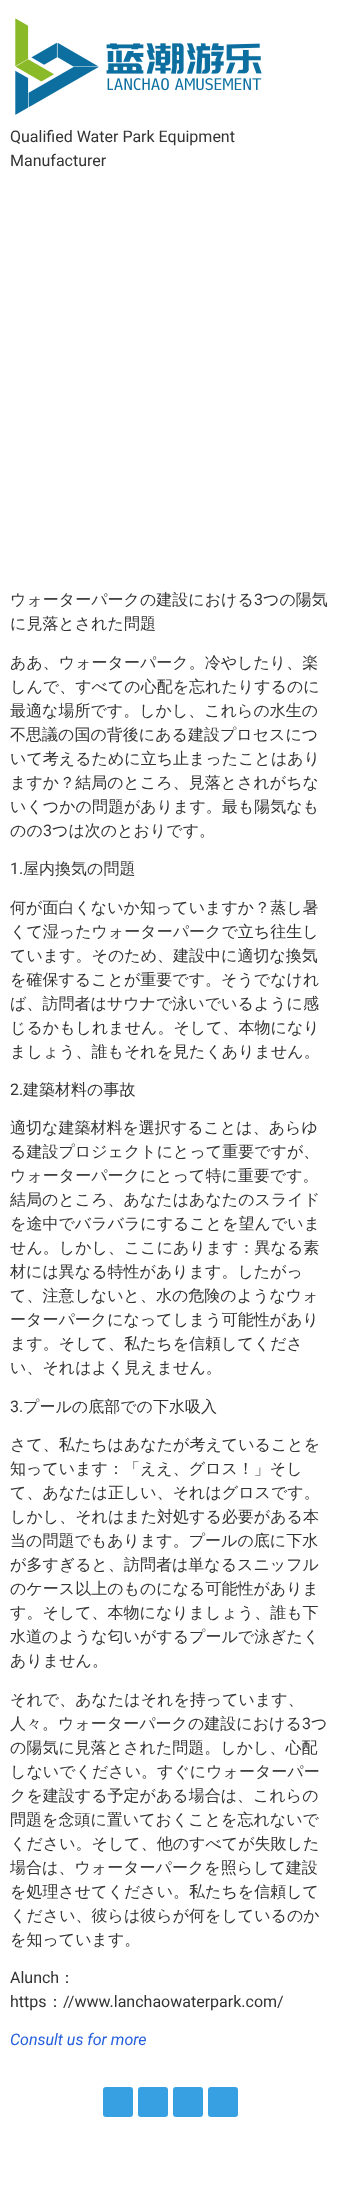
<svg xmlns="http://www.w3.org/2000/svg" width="340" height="2199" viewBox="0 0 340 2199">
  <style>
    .t1 { font: 16px Roboto; fill: #333; }
    .t2 { font: 500 16px WenQuanYi Zen Hei; fill: #333; }
    .t3 { font: italic 16px Roboto; fill: #255fdd; }
  </style>
  <rect width="100%" height="100%" fill="#fff"/>
  <image x="15" y="18" width="247" height="97" href="images/1.png"/>
  <text x="10" y="142" class="t1">Qualified Water Park Equipment</text>
  <text x="10" y="166" class="t1">Manufacturer</text>
  <text x="10" y="605" class="t2">ウォーターパークの建設における</text>
  <text x="254" y="605" class="t1">3</text>
  <text x="263" y="605" class="t2">つの陽気</text>
  <text x="10" y="629" class="t2">に見落とされた問題</text>
  <text x="10" y="668" class="t2">ああ、ウォーターパーク。冷やしたり、楽</text>
  <text x="10" y="692" class="t2">しんで、すべての心配を忘れたりするのに</text>
  <text x="10" y="716" class="t2">最適な場所です。しかし、これらの水生の</text>
  <text x="10" y="740" class="t2">不思議の国の背後にある建設プロセスにつ</text>
  <text x="10" y="764" class="t2">いて考えるために立ち止まったことはあり</text>
  <text x="10" y="788" class="t2">ますか？結局のところ、見落とされがちな</text>
  <text x="10" y="812" class="t2">いくつかの問題があります。最も陽気なも</text>
  <text x="10" y="836" class="t2">のの</text>
  <text x="43" y="836" class="t1">3</text>
  <text x="52" y="836" class="t2">つは次のとおりです。</text>
  <text x="10" y="874" class="t1">1.</text>
  <text x="23" y="874" class="t2">屋内換気の問題</text>
  <text x="10" y="913" class="t2">何が面白くないか知っていますか？蒸し暑</text>
  <text x="10" y="937" class="t2">くて湿ったウォーターパークで立ち往生し</text>
  <text x="10" y="961" class="t2">ています。そのため、建設中に適切な換気</text>
  <text x="10" y="985" class="t2">を確保することが重要です。そうでなけれ</text>
  <text x="10" y="1009" class="t2">ば、訪問者はサウナで泳いでいるように感</text>
  <text x="10" y="1033" class="t2">じるかもしれません。そして、本物になり</text>
  <text x="10" y="1057" class="t2">ましょう、誰もそれを見たくありません。</text>
  <text x="10" y="1095" class="t1">2.</text>
  <text x="23" y="1095" class="t2">建築材料の事故</text>
  <text x="10" y="1133" class="t2">適切な建築材料を選択することは、あらゆ</text>
  <text x="10" y="1157" class="t2">る建設プロジェクトにとって重要ですが、</text>
  <text x="10" y="1181" class="t2">ウォーターパークにとって特に重要です。</text>
  <text x="10" y="1205" class="t2">結局のところ、あなたはあなたのスライド</text>
  <text x="10" y="1229" class="t2">を途中でバラバラにすることを望んでいま</text>
  <text x="10" y="1253" class="t2">せん。しかし、ここにあります：異なる素</text>
  <text x="10" y="1277" class="t2">材には異なる特性があります。したがっ</text>
  <text x="10" y="1301" class="t2">て、注意しないと、水の危険のようなウォ</text>
  <text x="10" y="1325" class="t2">ーターパークになってしまう可能性があり</text>
  <text x="10" y="1349" class="t2">ます。そして、私たちを信頼してくださ</text>
  <text x="10" y="1373" class="t2">い、それはよく見えません。</text>
  <text x="10" y="1412" class="t1">3.</text>
  <text x="23" y="1412" class="t2">プールの底部での下水吸入</text>
  <text x="10" y="1450" class="t2">さて、私たちはあなたが考えていることを</text>
  <text x="10" y="1474" class="t2">知っています：「ええ、グロス！」そし</text>
  <text x="10" y="1498" class="t2">て、あなたは正しい、それはグロスです。</text>
  <text x="10" y="1522" class="t2">しかし、それはまた対処する必要がある本</text>
  <text x="10" y="1546" class="t2">当の問題でもあります。プールの底に下水</text>
  <text x="10" y="1570" class="t2">が多すぎると、訪問者は単なるスニッフル</text>
  <text x="10" y="1594" class="t2">のケース以上のものになる可能性がありま</text>
  <text x="10" y="1618" class="t2">す。そして、本物になりましょう、誰も下</text>
  <text x="10" y="1642" class="t2">水道のような匂いがするプールで泳ぎたく</text>
  <text x="10" y="1666" class="t2">ありません。</text>
  <text x="10" y="1705" class="t2">それで、あなたはそれを持っています、</text>
  <text x="10" y="1729" class="t2">人々。ウォーターパークの建設における</text>
  <text x="302" y="1729" class="t1">3</text>
  <text x="311" y="1729" class="t2">つ</text>
  <text x="10" y="1753" class="t2">の陽気に見落とされた問題。しかし、心配</text>
  <text x="10" y="1777" class="t2">しないでください。すぐにウォーターパー</text>
  <text x="10" y="1801" class="t2">クを建設する予定がある場合は、これらの</text>
  <text x="10" y="1825" class="t2">問題を念頭に置いておくことを忘れないで</text>
  <text x="10" y="1849" class="t2">ください。そして、他のすべてが失敗した</text>
  <text x="10" y="1873" class="t2">場合は、ウォーターパークを照らして建設</text>
  <text x="10" y="1897" class="t2">を処理させてください。私たちを信頼して</text>
  <text x="10" y="1921" class="t2">ください、彼らは彼らが何をしているのか</text>
  <text x="10" y="1945" class="t2">を知っています。</text>
  <text x="10" y="1983" class="t1">Alunch</text>
  <text x="59" y="1983" class="t2">：</text>
  <text x="10" y="2007" class="t1">https</text>
  <text x="47" y="2007" class="t2">：</text>
  <text x="63" y="2007" class="t1">//www.lanchaowaterpark.com/</text>
  <text x="10" y="2045" class="t3">Consult us for more</text>
  <rect x="103" y="2087" width="30" height="30" rx="3" fill="#36a0e2"/>
  <rect x="138" y="2087" width="30" height="30" rx="3" fill="#36a0e2"/>
  <rect x="173" y="2087" width="30" height="30" rx="3" fill="#36a0e2"/>
  <rect x="208" y="2087" width="30" height="30" rx="3" fill="#36a0e2"/>
</svg>
